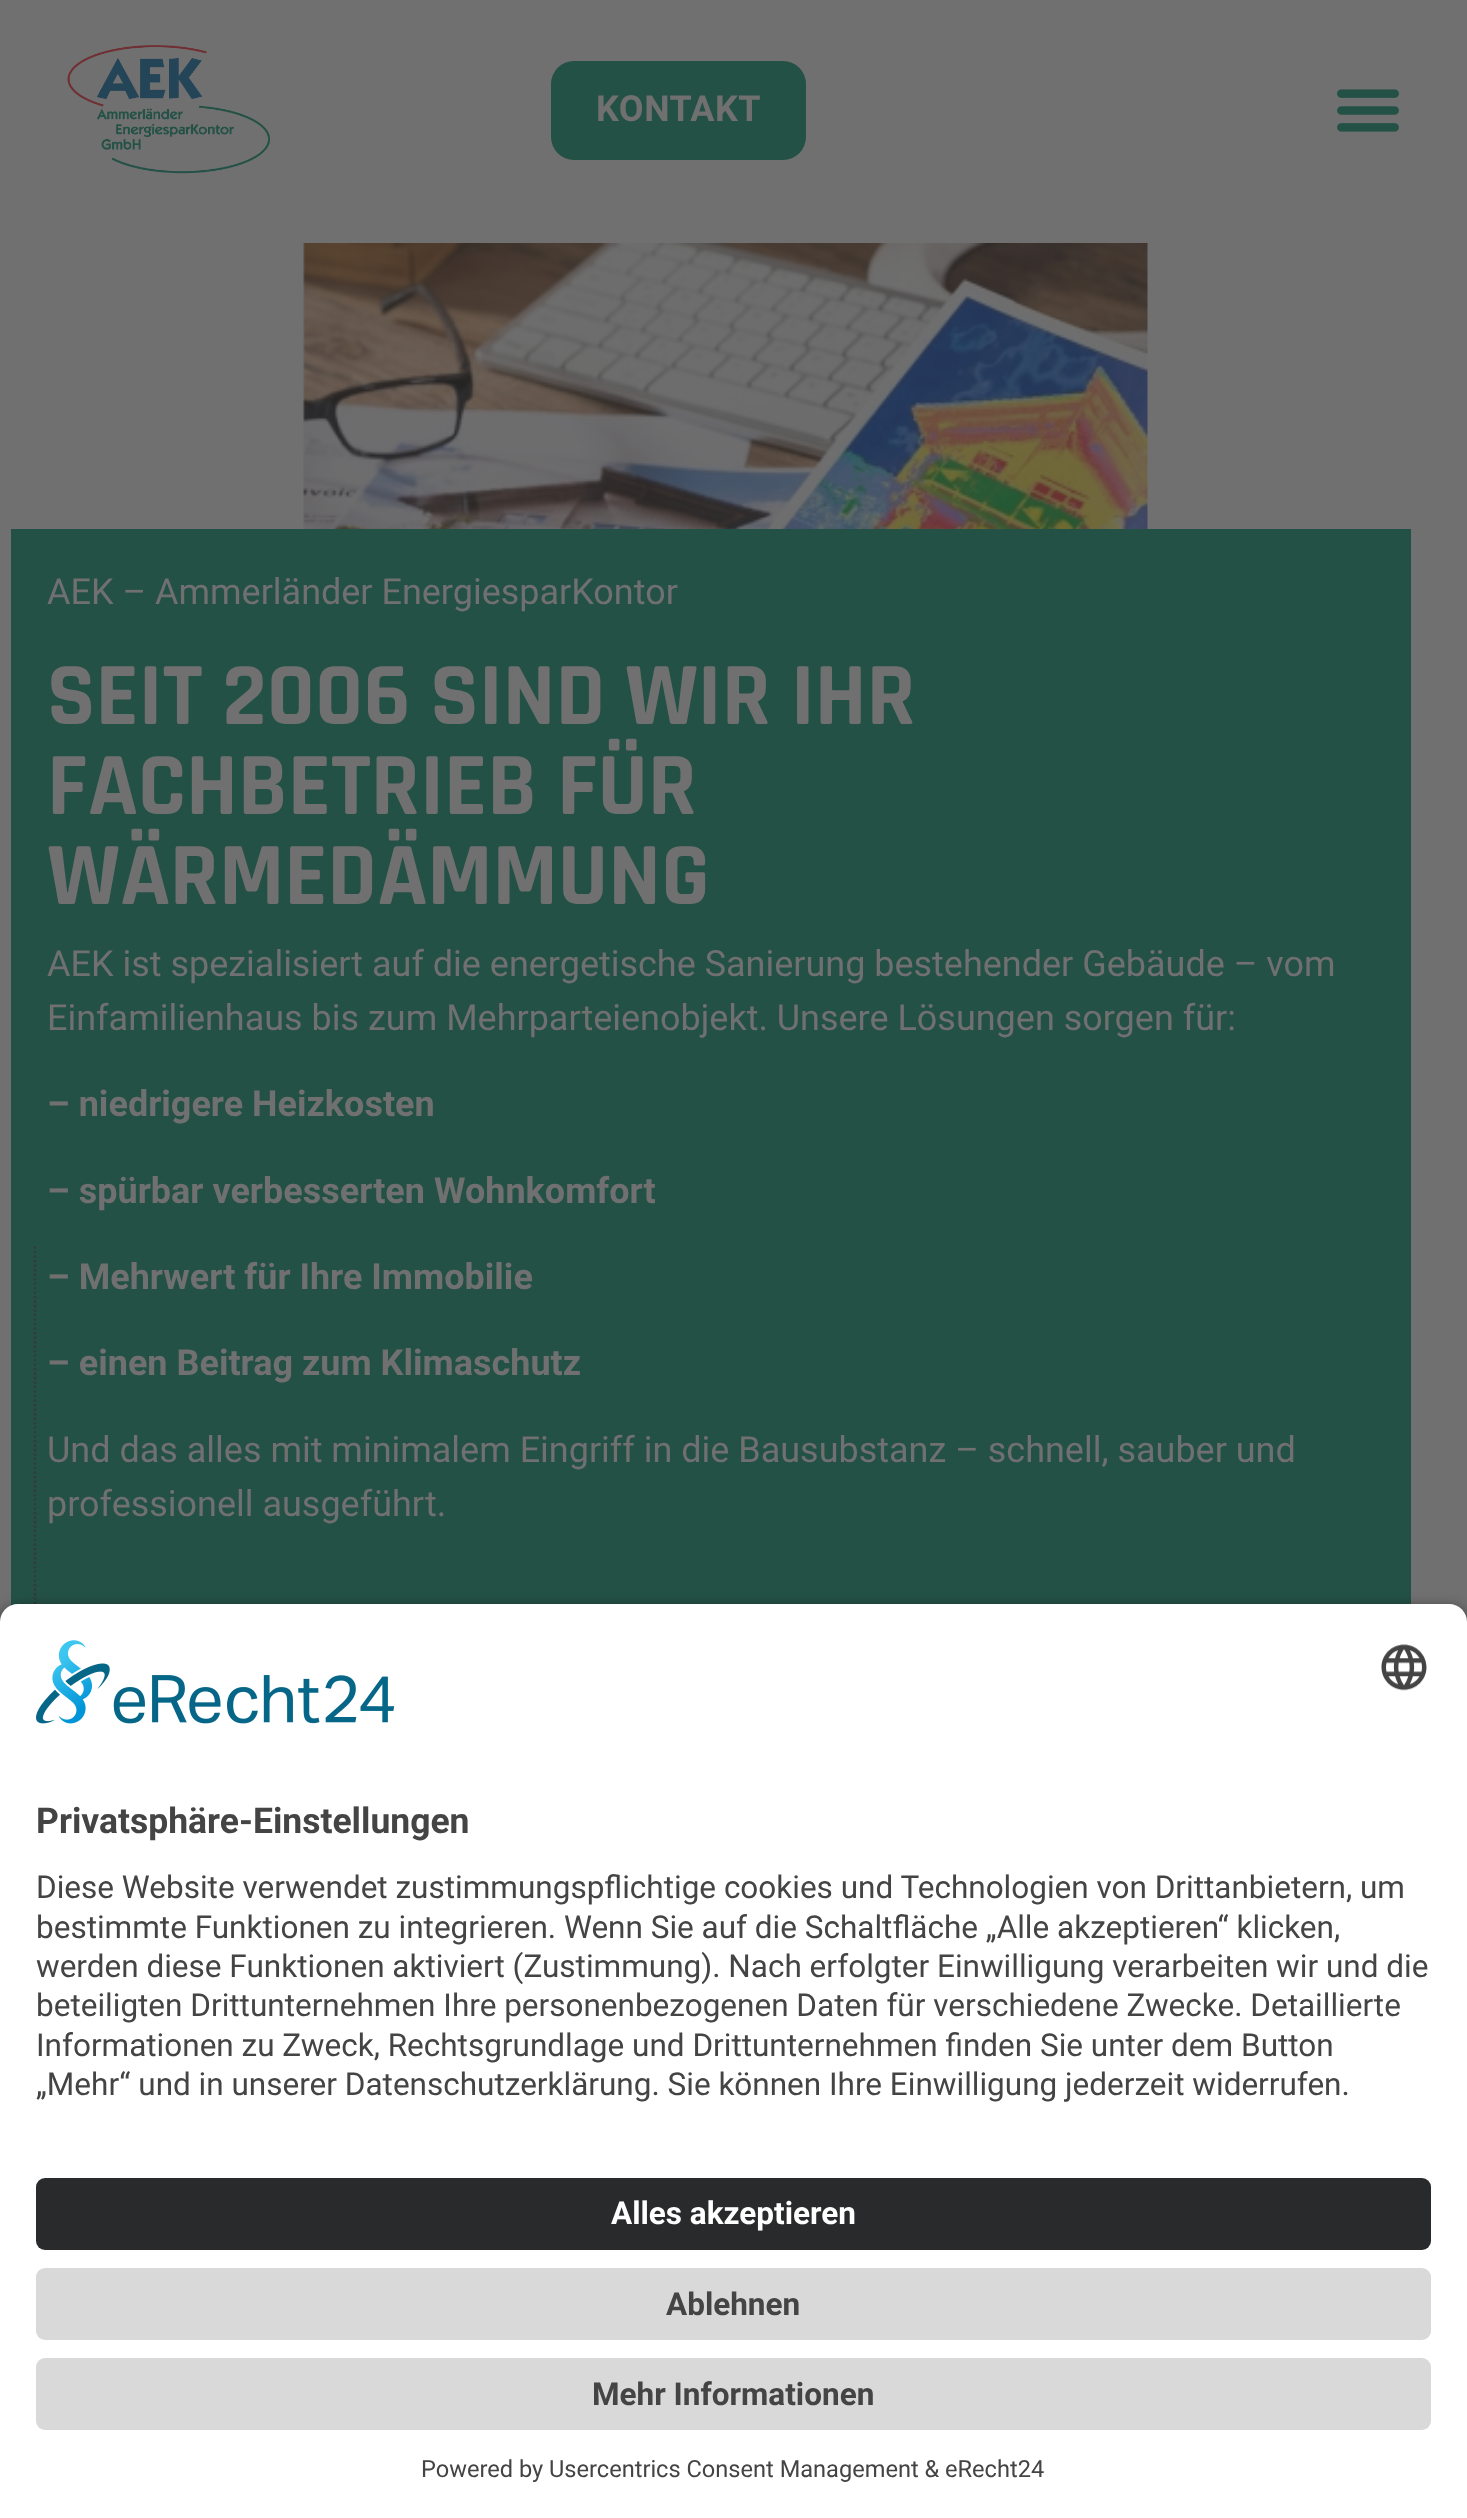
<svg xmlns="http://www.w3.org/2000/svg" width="1467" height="2518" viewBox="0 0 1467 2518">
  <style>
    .t1 { font: bold 36px Roboto; letter-spacing: 0.5px; fill: #707070; }
    .t2 { font: 36px Roboto; fill: #707070; }
    .t3 { font: bold 90px Rajdhani; fill: #707070; }
    .t4 { font: bold 36px Roboto; fill: #707070; }
    .t5 { font: bold 35.5px 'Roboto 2'; fill: #444; }
    .t6 { font: 31.5px 'Roboto 2'; fill: #444; }
    .t7 { font: bold 31.5px 'Roboto 2'; fill: #fff; }
    .t8 { font: bold 31.5px 'Roboto 2'; fill: #444; }
    .t9 { font: 23.6px 'Roboto 2'; fill: #444; }
  </style>
  <rect width="100%" height="100%" fill="#707070"/>
  <image x="67" y="45" width="203" height="129" href="images/1.png"/>
  <rect x="551" y="61" width="255" height="99" rx="23" fill="#245146"/>
  <text x="596" y="121" class="t1">KONTAKT</text>
  <image x="1337" y="89" width="62" height="43" href="images/2.png"/>
  <image x="303" y="243" width="845" height="286" href="images/3.png"/>
  <rect x="11" y="529" width="1400" height="1077" fill="#245146"/>
  <text x="47" y="604" class="t2">AEK – Ammerländer EnergiesparKontor</text>
  <text x="47" y="724" class="t3">SEIT 2006 SIND WIR IHR</text>
  <text x="47" y="814" class="t3">FACHBETRIEB FÜR</text>
  <text x="47" y="904" class="t3">WÄRMEDÄMMUNG</text>
  <text x="47" y="976" class="t2">AEK ist spezialisiert auf die energetische Sanierung bestehender Gebäude – vom</text>
  <text x="47" y="1030" class="t2">Einfamilienhaus bis zum Mehrparteienobjekt. Unsere Lösungen sorgen für:</text>
  <text x="47" y="1116" class="t4">– niedrigere Heizkosten</text>
  <text x="47" y="1203" class="t4">– spürbar verbesserten Wohnkomfort</text>
  <text x="47" y="1289" class="t4">– Mehrwert für Ihre Immobilie</text>
  <text x="47" y="1375" class="t4">– einen Beitrag zum Klimaschutz</text>
  <text x="47" y="1462" class="t2">Und das alles mit minimalem Eingriff in die Bausubstanz – schnell, sauber und</text>
  <text x="47" y="1516" class="t2">professionell ausgeführt.</text>
  <path d="M35 1246.5V2308.5" fill="none" stroke="#37383a" stroke-width="2.2" stroke-dasharray="2.25 2.25"/>
  <rect x="0" y="1611" width="1467" height="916" rx="18" fill="#000000cc" filter="blur(8px)"/>
  <path d="M18 1604H1449C1459 1604 1467 1612 1467 1622V2151H0V1622C0 1612 8 1604 18 1604Z" fill="#fff"/>
  <image x="36" y="1640" width="359" height="84" href="images/4.png"/>
  <image x="1381" y="1644" width="46" height="47" href="images/5.png"/>
  <text x="36" y="1833" class="t5">Privatsphäre-Einstellungen</text>
  <text x="36" y="1898" class="t6">Diese Website verwendet zustimmungspflichtige cookies und Technologien von Drittanbietern, um</text>
  <text x="36" y="1938" class="t6">bestimmte Funktionen zu integrieren. Wenn Sie auf die Schaltfläche „Alle akzeptieren“ klicken,</text>
  <text x="36" y="1977" class="t6">werden diese Funktionen aktiviert (Zustimmung). Nach erfolgter Einwilligung verarbeiten wir und die</text>
  <text x="36" y="2016" class="t6">beteiligten Drittunternehmen Ihre personenbezogenen Daten für verschiedene Zwecke. Detaillierte</text>
  <text x="36" y="2056" class="t6">Informationen zu Zweck, Rechtsgrundlage und Drittunternehmen finden Sie unter dem Button</text>
  <text x="36" y="2095" class="t6">„Mehr“ und in unserer Datenschutzerklärung. Sie können Ihre Einwilligung jederzeit widerrufen.</text>
  <rect x="0" y="2151" width="1467" height="367" fill="#fff"/>
  <rect x="36" y="2178" width="1395" height="72" rx="9" fill="#292a2b"/>
  <text x="611" y="2224" class="t7">Alles akzeptieren</text>
  <rect x="36" y="2268" width="1395" height="72" rx="9" fill="#d9d9d9"/>
  <text x="666" y="2315" class="t8">Ablehnen</text>
  <rect x="36" y="2358" width="1395" height="72" rx="9" fill="#d9d9d9"/>
  <text x="592" y="2405" class="t8">Mehr Informationen</text>
  <text x="421" y="2477" class="t9">Powered by Usercentrics Consent Management &amp; eRecht24</text>
</svg>
